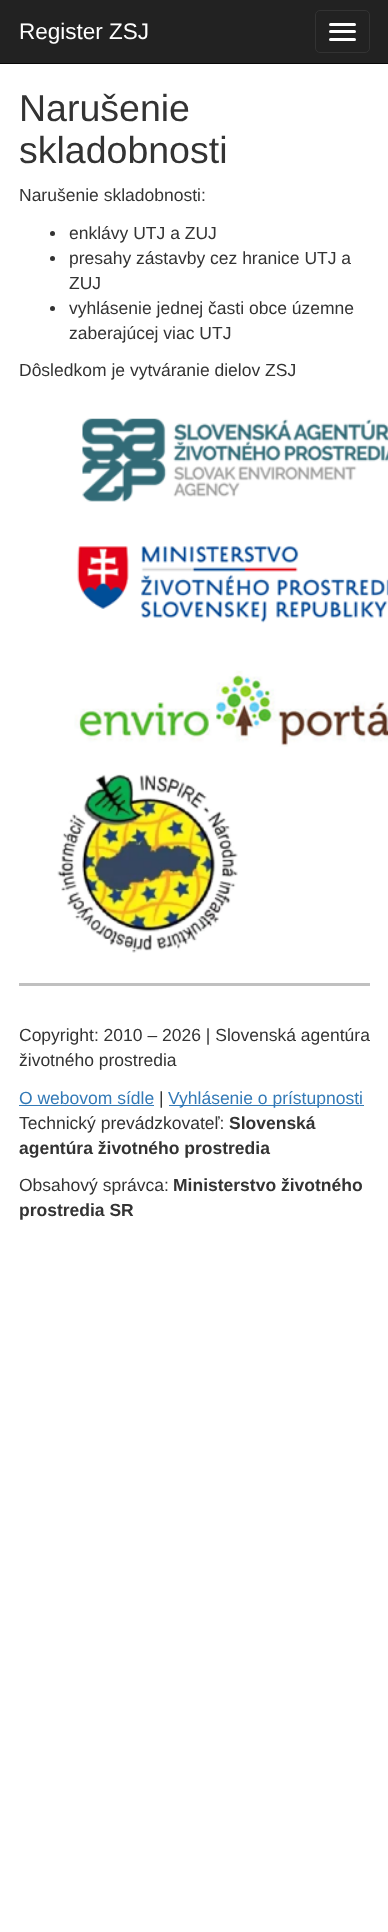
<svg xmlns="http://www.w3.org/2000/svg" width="388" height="1932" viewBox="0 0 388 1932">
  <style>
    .t1 { font: 22.5px Liberation Sans; fill: #fff; }
    .t2 { font: 37.5px Liberation Sans; fill: #333; }
    .t3 { font: 17.5px Liberation Sans; fill: #333; }
    .t4 { font: 17.5px Liberation Sans; fill: #337ab7; }
    .t5 { font: bold 17.5px Liberation Sans; fill: #333; }
  </style>
  <rect width="100%" height="100%" fill="#fff"/>
  <rect x="0" y="0" width="388" height="63" fill="#222"/>
  <rect x="0" y="63" width="388" height="1" fill="#080808"/>
  <text x="19" y="39" class="t1">Register ZSJ</text>
  <rect x="315.5" y="10.5" width="54" height="42" rx="4.5" fill="none" stroke="#333"/>
  <rect x="329" y="23" width="27" height="3" rx="1.5" fill="#fff"/>
  <rect x="329" y="30" width="27" height="3" rx="1.5" fill="#fff"/>
  <rect x="329" y="38" width="27" height="3" rx="1.5" fill="#fff"/>
  <text x="19" y="121" class="t2">Narušenie</text>
  <text x="19" y="163" class="t2">skladobnosti</text>
  <text x="19" y="201" class="t3">Narušenie skladobnosti:</text>
  <circle cx="52.5" cy="233.5" r="2.5" fill="#333"/>
  <text x="69" y="239" class="t3">enklávy UTJ a ZUJ</text>
  <circle cx="52.5" cy="258.5" r="2.5" fill="#333"/>
  <text x="69" y="264" class="t3">presahy zástavby cez hranice UTJ a</text>
  <text x="69" y="289" class="t3">ZUJ</text>
  <circle cx="52.5" cy="308.5" r="2.5" fill="#333"/>
  <text x="69" y="314" class="t3">vyhlásenie jednej časti obce územne</text>
  <text x="69" y="339" class="t3">zaberajúcej viac UTJ</text>
  <text x="19" y="376" class="t3">Dôsledkom je vytváranie dielov ZSJ</text>
  <image x="82" y="418" width="306" height="84" href="images/1.png"/>
  <image x="77" y="546" width="311" height="77" href="images/2.png"/>
  <image x="74" y="670" width="314" height="77" href="images/3.png"/>
  <image x="57" y="774" width="181" height="179" href="images/4.png"/>
  <rect x="19" y="983" width="351" height="3" fill="#c0c0c0"/>
  <text x="19" y="1041" class="t3">Copyright: 2010 – 2026 | Slovenská agentúra</text>
  <text x="19" y="1066" class="t3">životného prostredia</text>
  <text x="19" y="1104" class="t4">O webovom sídle</text>
  <rect x="19" y="1105" width="135" height="1" fill="#337ab7"/>
  <text x="159" y="1104" class="t3">|</text>
  <rect x="169" y="1105" width="195" height="1" fill="#337ab7"/>
  <text x="168" y="1104" class="t4">Vyhlásenie o prístupnosti</text>
  <text x="19" y="1129" class="t3">Technický prevádzkovateľ:</text>
  <text x="229" y="1129" class="t5">Slovenská</text>
  <text x="19" y="1154" class="t5">agentúra životného prostredia</text>
  <text x="19" y="1191" class="t3">Obsahový správca:</text>
  <text x="173" y="1191" class="t5">Ministerstvo životného</text>
  <text x="19" y="1216" class="t5">prostredia SR</text>
</svg>
